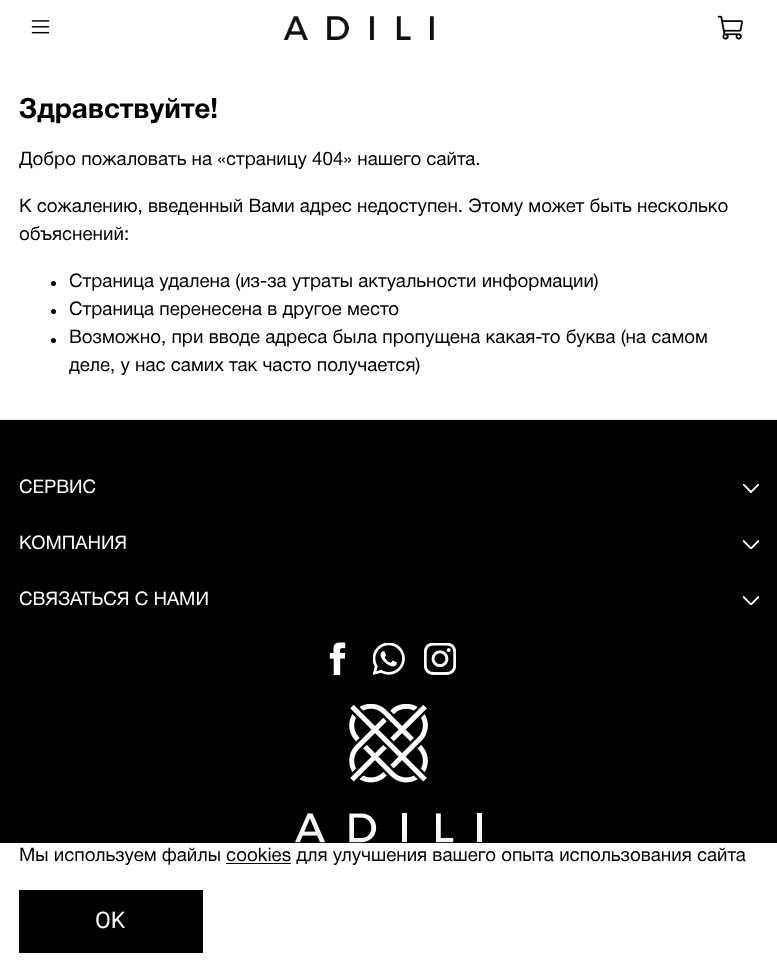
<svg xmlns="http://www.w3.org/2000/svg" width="777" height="967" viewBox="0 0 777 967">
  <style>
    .t1 { font: bold 28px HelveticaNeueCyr; fill: #000; }
    .t2 { font: 18.75px HelveticaNeueCyr; fill: #000; }
    .t3 { font: 18.75px HelveticaNeueCyr; fill: #fff; }
    .t4 { font: 23px Roboto; fill: #fff; }
  </style>
  <defs>
    <clipPath id="clip1"><rect x="743" y="484" width="16" height="9"/></clipPath>
    <clipPath id="clip2"><rect x="743" y="540" width="16" height="9"/></clipPath>
    <clipPath id="clip3"><rect x="743" y="596" width="16" height="9"/></clipPath>
  </defs>
  <rect width="100%" height="100%" fill="#fff"/>
  <image x="31" y="20" width="19" height="14" href="images/1.png"/>
  <image x="283" y="16" width="151" height="24" href="images/2.png"/>
  <image x="717" y="15" width="26" height="25" href="images/3.png"/>
  <text x="19" y="118" class="t1">Здравствуйте!</text>
  <text x="19" y="165" class="t2">Добро пожаловать на «страницу 404» нашего сайта.</text>
  <text x="19" y="212" class="t2">К сожалению, введенный Вами адрес недоступен. Этому может быть несколько</text>
  <text x="19" y="240" class="t2">объяснений:</text>
  <circle cx="53.5" cy="283.5" r="2.5" fill="#000"/>
  <text x="69" y="287" class="t2">Страница удалена (из-за утраты актуальности информации)</text>
  <circle cx="53.5" cy="311.5" r="2.5" fill="#000"/>
  <text x="69" y="315" class="t2">Страница перенесена в другое место</text>
  <circle cx="53.5" cy="340.5" r="2.5" fill="#000"/>
  <text x="69" y="343" class="t2">Возможно, при вводе адреса была пропущена какая-то буква (на самом</text>
  <text x="69" y="371" class="t2">деле, у нас самих так часто получается)</text>
  <rect x="0" y="420" width="777" height="423" fill="#000"/>
  <rect x="0" y="419" width="777" height="1" fill="#e5e5e5"/>
  <text x="19" y="493" class="t3">СЕРВИС</text>
  <g clip-path="url(#clip1)">
    <path d="M758.5 484.5L751 492L743.5 484.5" fill="none" stroke="#fff" stroke-width="1.9" stroke-linecap="round" stroke-linejoin="round"/>
  </g>
  <text x="19" y="549" class="t3">КОМПАНИЯ</text>
  <g clip-path="url(#clip2)">
    <path d="M758.5 541L751 548.5L743.5 541" fill="none" stroke="#fff" stroke-width="1.9" stroke-linecap="round" stroke-linejoin="round"/>
  </g>
  <text x="19" y="605" class="t3">СВЯЗАТЬСЯ С НАМИ</text>
  <g clip-path="url(#clip3)">
    <path d="M758.5 597L751 604.5L743.5 597" fill="none" stroke="#fff" stroke-width="1.9" stroke-linecap="round" stroke-linejoin="round"/>
  </g>
  <image x="329" y="642" width="17" height="33" href="images/4.png"/>
  <image x="373" y="643" width="32" height="32" href="images/5.png"/>
  <image x="424" y="643" width="32" height="32" href="images/6.png"/>
  <image x="295" y="704" width="187" height="139" href="images/7.png"/>
  <rect x="-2" y="839" width="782" height="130" fill="#00000017" filter="blur(14.5px)"/>
  <rect x="0" y="843" width="777" height="124" fill="#fff"/>
  <text x="19" y="861" class="t2">Мы используем файлы cookies для улучшения вашего опыта использования сайта</text>
  <rect x="226" y="863" width="65" height="1" fill="#000"/>
  <rect x="19" y="890" width="184" height="63" fill="#000"/>
  <text x="95" y="928" class="t4">OK</text>
</svg>
